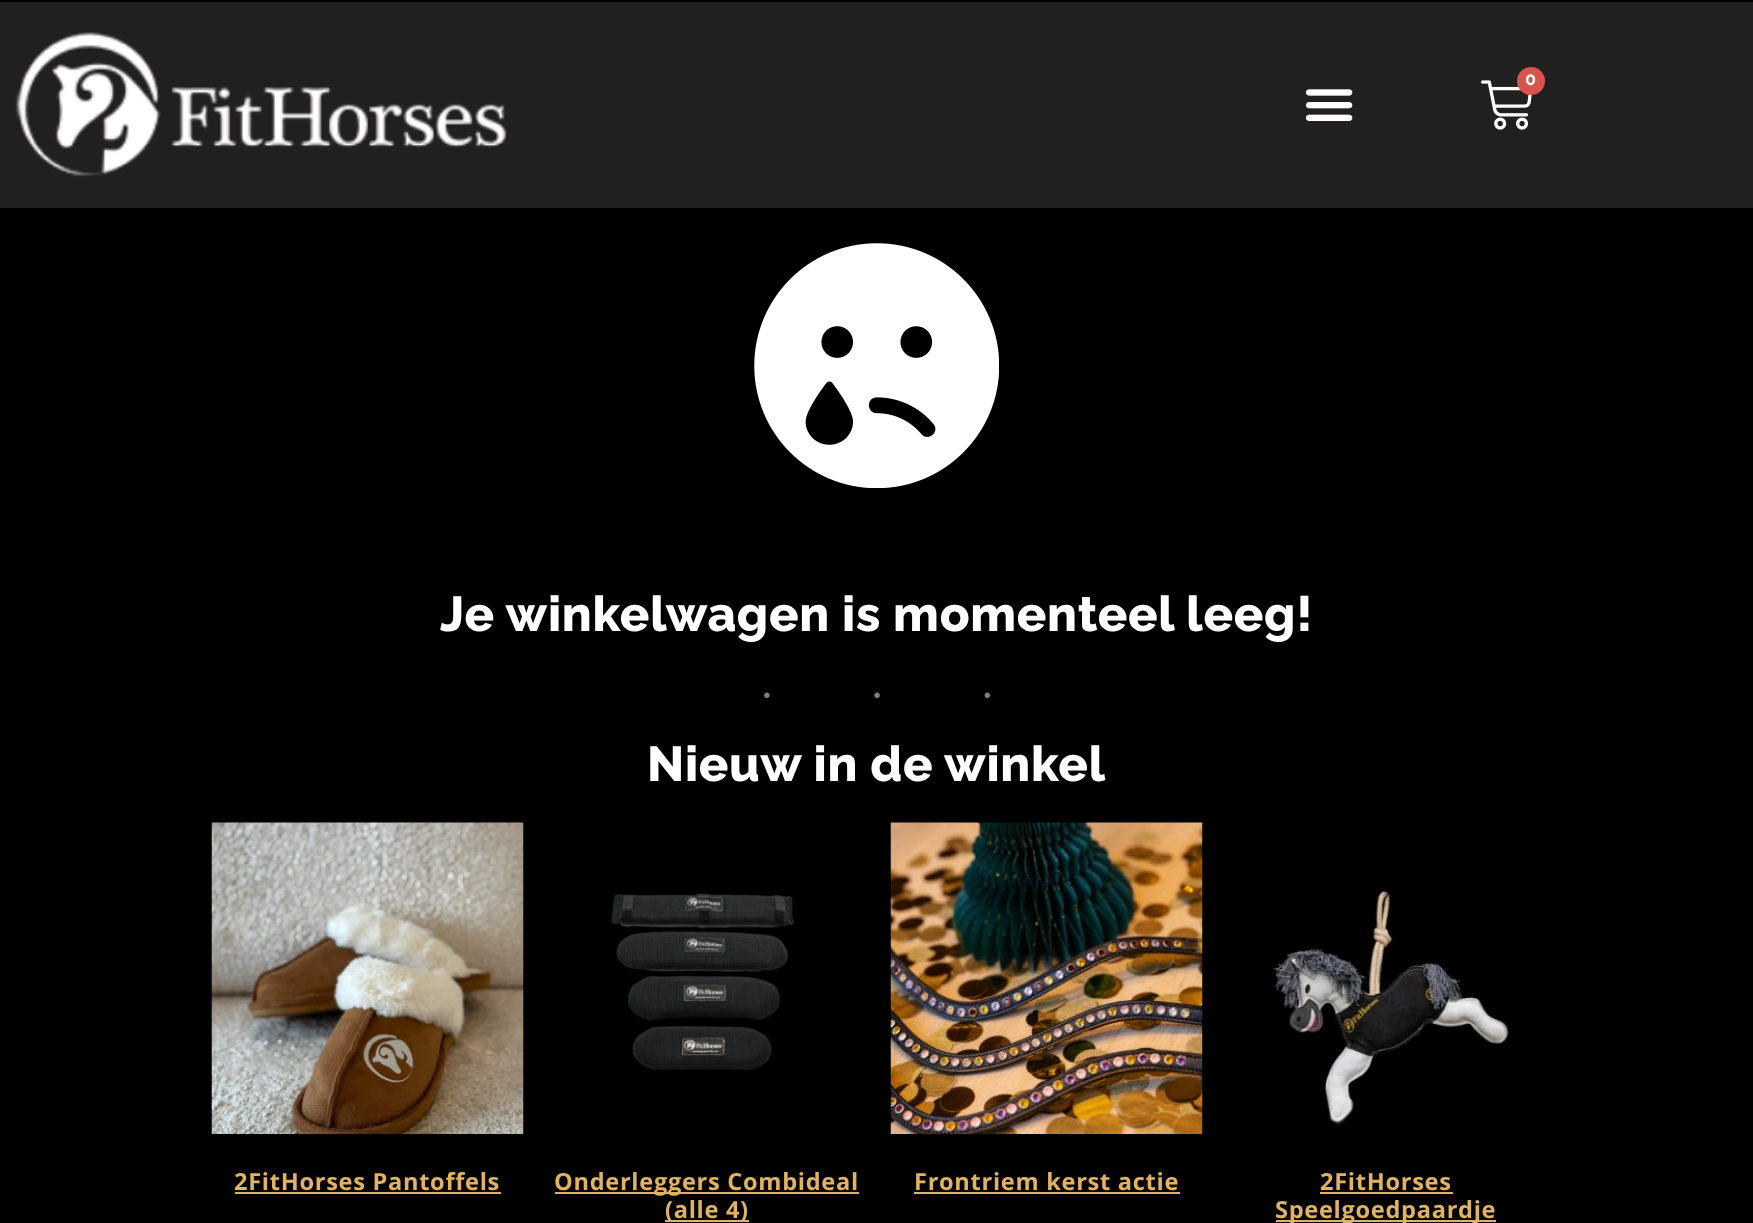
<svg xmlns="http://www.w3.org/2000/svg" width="1753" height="1223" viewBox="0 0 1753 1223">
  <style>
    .t1 { font: bold 18px Raleway; letter-spacing: 0.7px; fill: #fff; }
    .t2 { font: 800 49px Raleway; letter-spacing: 0.7px; fill: #fff; }
    .t3 { font: 47.25px Liberation Serif; letter-spacing: 94.5px; fill: #808080; }
    .t4 { font: bold 23.6px Open Sans; letter-spacing: 0.7px; fill: #e1b261; }
  </style>
  <rect width="100%" height="100%" fill="#000"/>
  <rect x="0" y="2" width="1753" height="206" fill="#211f20"/>
  <image x="15" y="32" width="492" height="145" href="images/1.png"/>
  <image x="1481" y="80" width="51" height="50" href="images/2.png"/>
  <circle cx="1531" cy="81" r="14" fill="#d9534f"/>
  <text x="1525" y="85" class="t1">0</text>
  <image x="1305" y="89" width="48" height="32" href="images/3.png"/>
  <image x="754" y="243" width="245" height="245" href="images/4.png"/>
  <text x="440" y="631" class="t2">Je winkelwagen is momenteel leeg!</text>
  <text x="759" y="711" class="t3">···</text>
  <text x="647" y="781" class="t2">Nieuw in de winkel</text>
  <image x="211" y="822" width="313" height="312" href="images/5.png"/>
  <text x="234" y="1190" class="t4">2FitHorses Pantoffels</text>
  <rect x="235" y="1192" width="266" height="2" fill="#e1b261"/>
  <image x="611" y="893" width="184" height="178" href="images/6.png"/>
  <rect x="555" y="1192" width="304" height="2" fill="#e1b261"/>
  <text x="554" y="1190" class="t4">Onderleggers Combideal</text>
  <rect x="665" y="1220" width="84" height="2" fill="#e1b261"/>
  <text x="665" y="1218" class="t4">(alle 4)</text>
  <image x="890" y="822" width="313" height="312" href="images/7.png"/>
  <text x="914" y="1190" class="t4">Frontriem kerst actie</text>
  <rect x="914" y="1192" width="266" height="2" fill="#e1b261"/>
  <image x="1272" y="889" width="237" height="237" href="images/8.png"/>
  <text x="1320" y="1190" class="t4">2FitHorses</text>
  <rect x="1320" y="1192" width="133" height="2" fill="#e1b261"/>
  <rect x="1276" y="1220" width="220" height="2" fill="#e1b261"/>
  <text x="1275" y="1218" class="t4">Speelgoedpaardje</text>
</svg>
